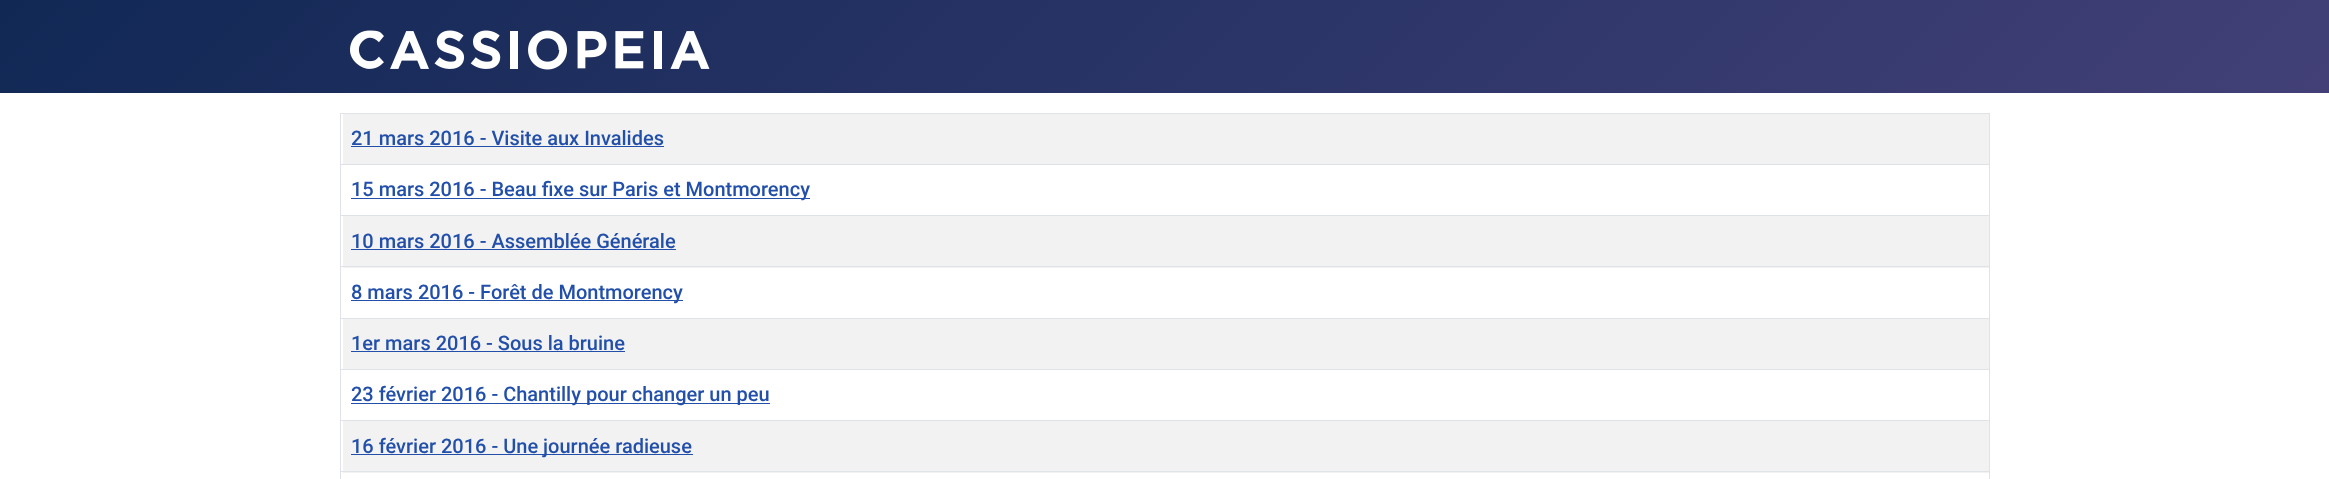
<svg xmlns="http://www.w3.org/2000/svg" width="2329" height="479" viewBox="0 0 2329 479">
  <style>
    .t1 { font: 500 20px Roboto; fill: #224faa; }
  </style>
  <defs>
    <linearGradient id="g1" gradientUnits="userSpaceOnUse" x1="559" y1="-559" x2="1771" y2="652"><stop offset="0" stop-color="#112855"/><stop offset="1" stop-color="#424077"/></linearGradient>
  </defs>
  <rect width="100%" height="100%" fill="#fff"/>
  <rect x="0" y="0" width="2329" height="93" fill="url(#g1)"/>
  <image x="350" y="30" width="360" height="40" href="images/1.png"/>
  <rect x="343" y="421" width="1646" height="52" fill="#f2f2f2"/>
  <rect x="340" y="471" width="1650" height="1" fill="#dfe3e7"/>
  <rect x="340" y="113" width="1650" height="1" fill="#dfe3e7"/>
  <rect x="340" y="164" width="1650" height="1" fill="#dfe3e7"/>
  <rect x="340" y="215" width="1650" height="1" fill="#dfe3e7"/>
  <rect x="343" y="216" width="1646" height="52" fill="#f2f2f2"/>
  <rect x="340" y="266" width="1650" height="1" fill="#dfe3e7"/>
  <rect x="340" y="318" width="1650" height="1" fill="#dfe3e7"/>
  <rect x="340" y="369" width="1650" height="1" fill="#dfe3e7"/>
  <rect x="340" y="420" width="1650" height="1" fill="#dfe3e7"/>
  <rect x="1989" y="113" width="1" height="366" fill="#dfe3e7"/>
  <rect x="340" y="113" width="1" height="366" fill="#dfe3e7"/>
  <rect x="343" y="114" width="1646" height="50" fill="#f2f2f2"/>
  <text x="351" y="145" class="t1">21 mars 2016 - Visite aux Invalides</text>
  <rect x="351" y="146" width="313" height="1" fill="#224faa"/>
  <rect x="351" y="198" width="459" height="1" fill="#224faa"/>
  <text x="351" y="196" class="t1">15 mars 2016 - Beau fixe sur Paris et Montmorency</text>
  <text x="351" y="248" class="t1">10 mars 2016 - Assemblée Générale</text>
  <rect x="351" y="249" width="325" height="1" fill="#224faa"/>
  <rect x="351" y="300" width="332" height="1" fill="#224faa"/>
  <text x="351" y="299" class="t1">8 mars 2016 - Forêt de Montmorency</text>
  <rect x="343" y="319" width="1646" height="50" fill="#f2f2f2"/>
  <text x="351" y="350" class="t1">1er mars 2016 - Sous la bruine</text>
  <rect x="351" y="351" width="274" height="1" fill="#224faa"/>
  <rect x="351" y="403" width="419" height="1" fill="#224faa"/>
  <text x="351" y="401" class="t1">23 février 2016 - Chantilly pour changer un peu</text>
  <rect x="351" y="454" width="342" height="1" fill="#224faa"/>
  <text x="351" y="453" class="t1">16 février 2016 - Une journée radieuse</text>
</svg>
